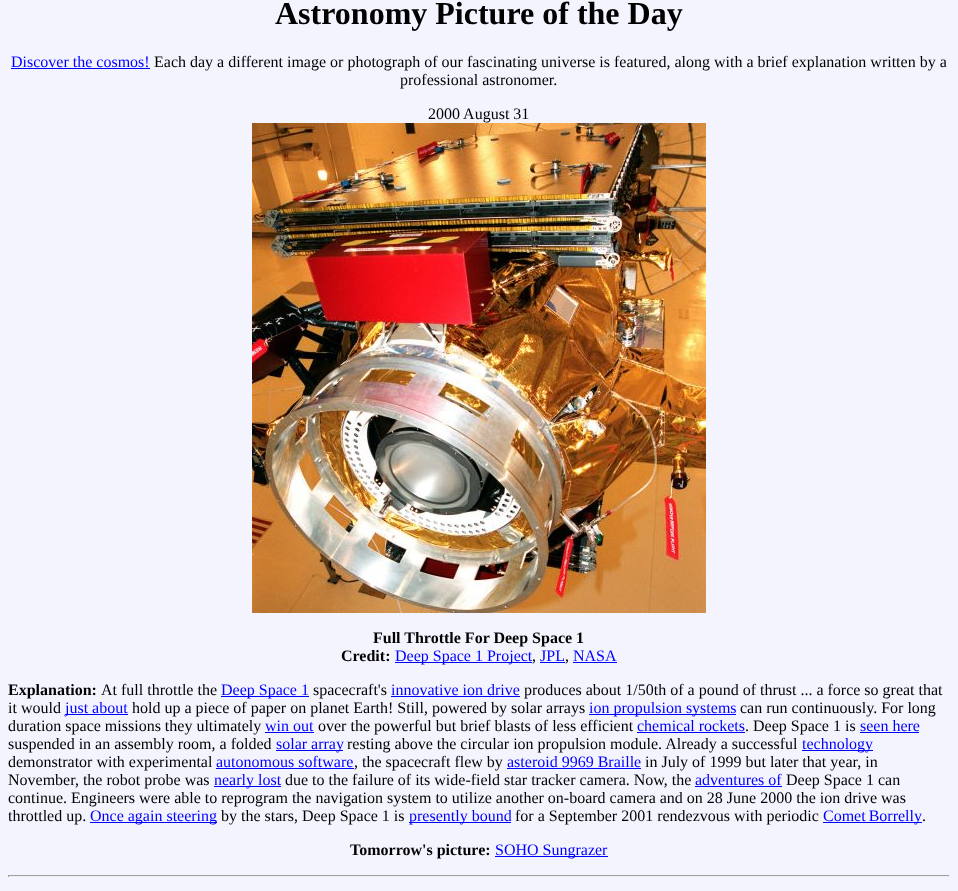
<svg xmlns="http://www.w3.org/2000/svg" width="958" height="891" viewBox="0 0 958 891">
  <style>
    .t1 { font: bold 32px Liberation Serif; fill: #000; }
    .t2 { font: 16px Liberation Serif; fill: #00f; }
    .t3 { font: 16px Liberation Serif; fill: #000; }
    .t4 { font: bold 16px Liberation Serif; fill: #000; }
  </style>
  <rect width="100%" height="100%" fill="#f4f4ff"/>
  <text x="275" y="24" class="t1">Astronomy Picture of the Day</text>
  <text x="11" y="67" class="t2">Discover the cosmos!</text>
  <rect x="11" y="68" width="139" height="1" fill="#00f"/>
  <text x="154" y="67" class="t3">Each day a different image or photograph of our fascinating universe is featured, along with a brief explanation written by a</text>
  <text x="400" y="85" class="t3">professional astronomer.</text>
  <text x="428" y="119" class="t3">2000 August 31</text>
  <image x="252" y="123" width="454" height="490" href="images/1.png"/>
  <text x="373" y="643" class="t4">Full Throttle For Deep Space 1</text>
  <text x="341" y="661" class="t4">Credit:</text>
  <rect x="395" y="662" width="137" height="1" fill="#00f"/>
  <text x="395" y="661" class="t2">Deep Space 1 Project</text>
  <text x="532" y="661" class="t3">,</text>
  <text x="540" y="661" class="t2">JPL</text>
  <rect x="540" y="662" width="25" height="1" fill="#00f"/>
  <text x="565" y="661" class="t3">,</text>
  <text x="573" y="661" class="t2">NASA</text>
  <rect x="573" y="662" width="44" height="1" fill="#00f"/>
  <text x="8" y="695" class="t4">Explanation:</text>
  <text x="101" y="695" class="t3">At full throttle the</text>
  <rect x="221" y="696" width="88" height="1" fill="#00f"/>
  <text x="221" y="695" class="t2">Deep Space 1</text>
  <text x="313" y="695" class="t3">spacecraft's</text>
  <text x="391" y="695" class="t2">innovative ion drive</text>
  <rect x="391" y="696" width="129" height="1" fill="#00f"/>
  <text x="524" y="695" class="t3">produces about 1/50th of a pound of thrust ... a force so great that</text>
  <text x="8" y="713" class="t3">it would</text>
  <rect x="65" y="714" width="63" height="1" fill="#00f"/>
  <text x="65" y="713" class="t2">just about</text>
  <text x="132" y="713" class="t3">hold up a piece of paper on planet Earth! Still, powered by solar arrays</text>
  <rect x="589" y="714" width="147" height="1" fill="#00f"/>
  <text x="589" y="713" class="t2">ion propulsion systems</text>
  <text x="740" y="713" class="t3">can run continuously. For long</text>
  <text x="8" y="731" class="t3">duration space missions they ultimately</text>
  <text x="265" y="731" class="t2">win out</text>
  <rect x="265" y="732" width="49" height="1" fill="#00f"/>
  <text x="318" y="731" class="t3">over the powerful but brief blasts of less efficient</text>
  <text x="637" y="731" class="t2">chemical rockets</text>
  <rect x="637" y="732" width="108" height="1" fill="#00f"/>
  <text x="745" y="731" class="t3">. Deep Space 1 is</text>
  <text x="860" y="731" class="t2">seen here</text>
  <rect x="860" y="732" width="59" height="1" fill="#00f"/>
  <text x="8" y="749" class="t3">suspended in an assembly room, a folded</text>
  <rect x="276" y="750" width="67" height="1" fill="#00f"/>
  <text x="276" y="749" class="t2">solar array</text>
  <text x="347" y="749" class="t3">resting above the circular ion propulsion module. Already a successful</text>
  <rect x="802" y="750" width="71" height="1" fill="#00f"/>
  <text x="802" y="749" class="t2">technology</text>
  <text x="8" y="767" class="t3">demonstrator with experimental</text>
  <text x="216" y="767" class="t2">autonomous software</text>
  <rect x="216" y="768" width="138" height="1" fill="#00f"/>
  <text x="354" y="767" class="t3">, the spacecraft flew by</text>
  <text x="507" y="767" class="t2">asteroid 9969 Braille</text>
  <rect x="507" y="768" width="134" height="1" fill="#00f"/>
  <text x="645" y="767" class="t3">in July of 1999 but later that year, in</text>
  <text x="8" y="785" class="t3">November, the robot probe was</text>
  <rect x="214" y="786" width="67" height="1" fill="#00f"/>
  <text x="214" y="785" class="t2">nearly lost</text>
  <text x="285" y="785" class="t3">due to the failure of its wide-field star tracker camera. Now, the</text>
  <text x="695" y="785" class="t2">adventures of</text>
  <rect x="695" y="786" width="87" height="1" fill="#00f"/>
  <text x="786" y="785" class="t3">Deep Space 1 can</text>
  <text x="8" y="803" class="t3">continue. Engineers were able to reprogram the navigation system to utilize another on-board camera and on 28 June 2000 the ion drive was</text>
  <text x="8" y="821" class="t3">throttled up.</text>
  <rect x="90" y="822" width="127" height="1" fill="#00f"/>
  <text x="90" y="821" class="t2">Once again steering</text>
  <text x="221" y="821" class="t3">by the stars, Deep Space 1 is</text>
  <rect x="409" y="822" width="102" height="1" fill="#00f"/>
  <text x="409" y="821" class="t2">presently bound</text>
  <text x="515" y="821" class="t3">for a September 2001 rendezvous with periodic</text>
  <rect x="823" y="822" width="99" height="1" fill="#00f"/>
  <text x="823" y="821" word-spacing="-1" class="t2">Comet Borrelly</text>
  <text x="922" y="821" class="t3">.</text>
  <text x="350" y="855" class="t4">Tomorrow's picture:</text>
  <rect x="495" y="856" width="113" height="1" fill="#00f"/>
  <text x="495" y="855" class="t2">SOHO Sungrazer</text>
  <rect x="8" y="875" width="942" height="1" fill="#9f9f9f"/>
  <rect x="949" y="875" width="1" height="2" fill="#eee"/>
  <rect x="8" y="876" width="942" height="1" fill="#eee"/>
  <rect x="8" y="875" width="1" height="2" fill="#9f9f9f"/>
</svg>
